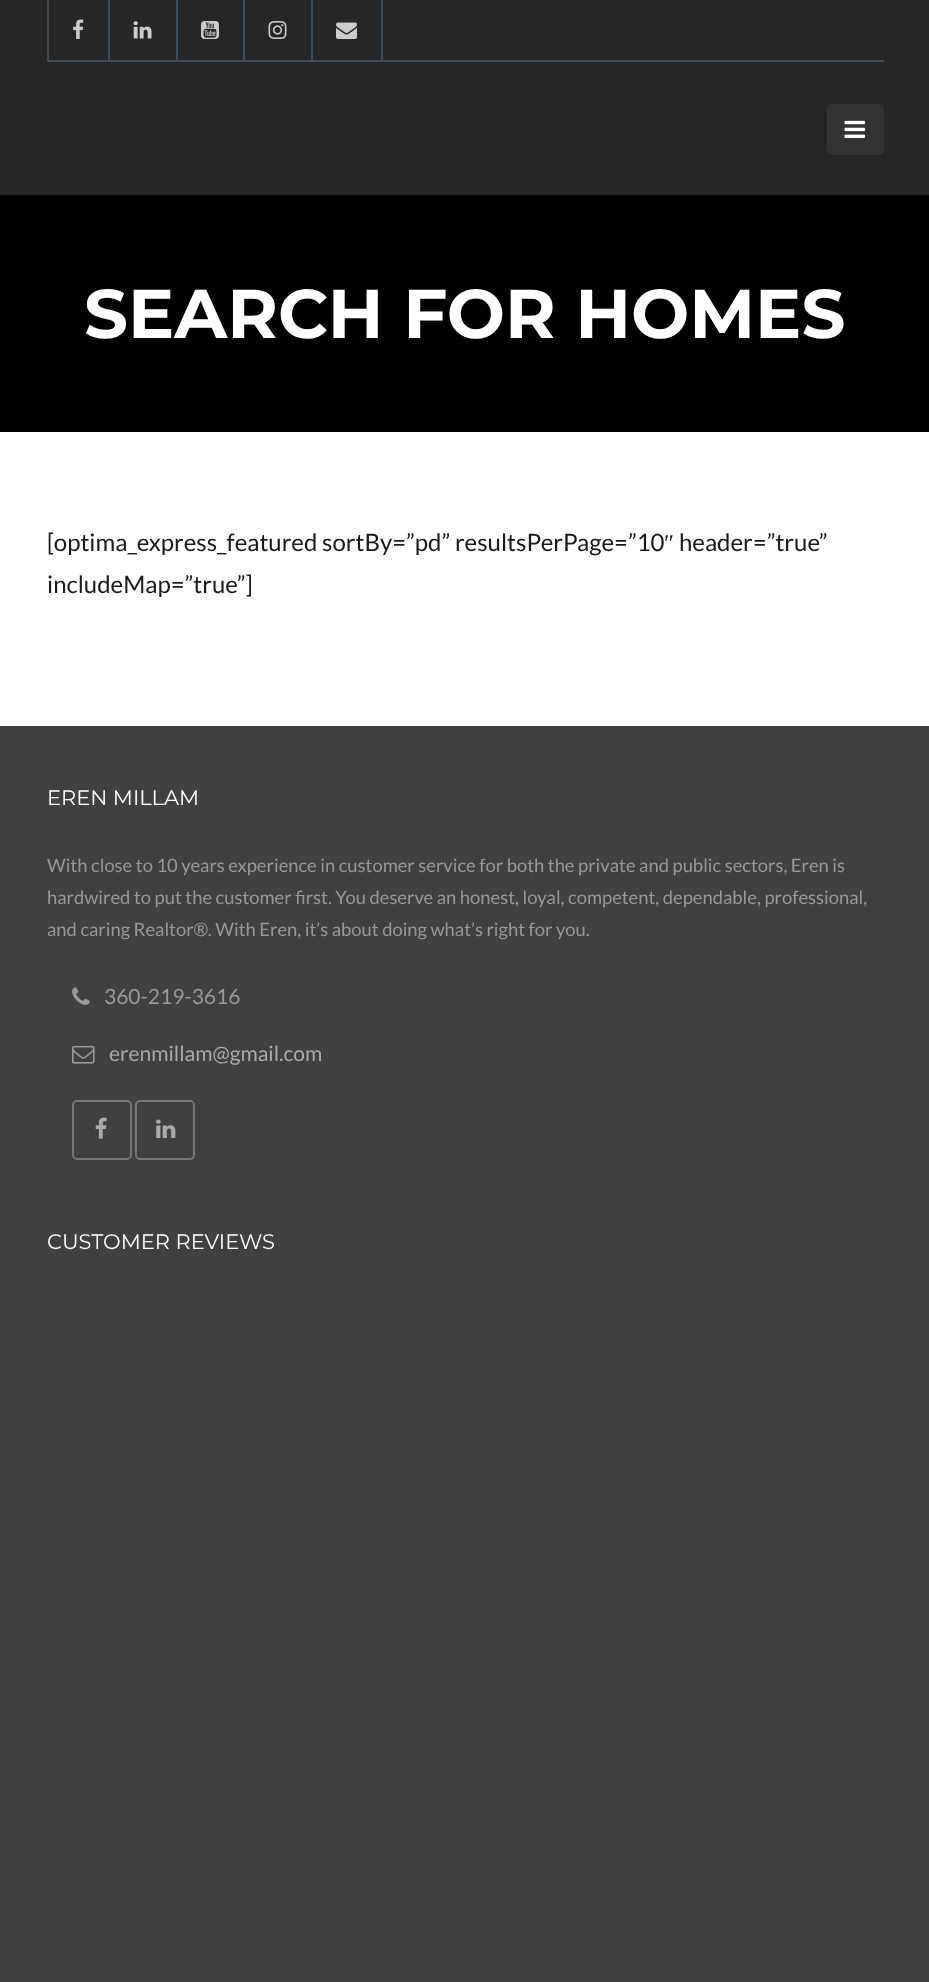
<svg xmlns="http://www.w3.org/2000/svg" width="929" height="1982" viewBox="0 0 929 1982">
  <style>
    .t1 { font: bold 69px Montserrat; fill: #fff; }
    .t2 { font: 24px Lato; fill: #191919; }
    .t3 { font: 24px Liberation Serif; fill: #191919; }
    .t4 { font: 21px Montserrat; fill: #fff; }
    .t5 { font: 18.4px Lato; fill: #999; }
    .t6 { font: 21px Lato; fill: #999; }
    .t7 { font: 21px Lato; fill: #aaa; }
  </style>
  <rect width="100%" height="100%" fill="#fff"/>
  <rect x="0" y="0" width="929" height="195" fill="#262626"/>
  <rect x="827" y="104" width="57" height="51" rx="5" fill="#333"/>
  <image x="844" y="120" width="22" height="18" href="images/1.png"/>
  <rect x="47" y="60" width="837" height="2" fill="#3b4d5d"/>
  <rect x="108" y="0" width="2" height="60" fill="#3b4d5d"/>
  <rect x="47" y="0" width="2" height="60" fill="#3b4d5d"/>
  <image x="73" y="19" width="11" height="20" href="images/2.png"/>
  <rect x="176" y="0" width="2" height="60" fill="#3b4d5d"/>
  <image x="133" y="21" width="19" height="18" href="images/3.png"/>
  <rect x="243" y="0" width="2" height="60" fill="#3b4d5d"/>
  <image x="201" y="21" width="18" height="18" href="images/4.png"/>
  <rect x="311" y="0" width="2" height="60" fill="#3b4d5d"/>
  <image x="268" y="21" width="19" height="18" href="images/5.png"/>
  <rect x="381" y="0" width="2" height="60" fill="#3b4d5d"/>
  <image x="336" y="22" width="21" height="17" href="images/6.png"/>
  <rect x="0" y="195" width="929" height="237" fill="#000"/>
  <text x="84" y="338" class="t1">SEARCH FOR HOMES</text>
  <text x="47" y="551" class="t2">[optima_express_featured sortBy=”pd” resultsPerPage=”10</text>
  <text x="664" y="551" class="t3">″</text>
  <text x="679" y="551" class="t2">header=”true”</text>
  <text x="47" y="593" class="t2">includeMap=”true”]</text>
  <rect x="0" y="726" width="929" height="1256" fill="#404040"/>
  <text x="47" y="805" class="t4">EREN MILLAM</text>
  <text x="47" y="872" class="t5">With close to 10 years experience in customer service for both the private and public sectors, Eren is</text>
  <text x="47" y="904" class="t5">hardwired to put the customer first. You deserve an honest, loyal, competent, dependable, professional,</text>
  <text x="47" y="936" class="t5">and caring Realtor®. With Eren, it’s about doing what’s right for you.</text>
  <image x="72" y="987" width="18" height="18" href="images/7.png"/>
  <text x="104" y="1004" class="t6">360-219-3616</text>
  <image x="72" y="1045" width="23" height="19" href="images/8.png"/>
  <text x="109" y="1061" class="t7">erenmillam@gmail.com</text>
  <rect x="73" y="1101" width="58" height="58" rx="4" fill="none" stroke="#777" stroke-width="2"/>
  <image x="95" y="1117" width="12" height="22" href="images/9.png"/>
  <rect x="136" y="1101" width="58" height="58" rx="4" fill="none" stroke="#777" stroke-width="2"/>
  <image x="156" y="1119" width="20" height="19" href="images/10.png"/>
  <text x="47" y="1249" class="t4">CUSTOMER REVIEWS</text>
</svg>
